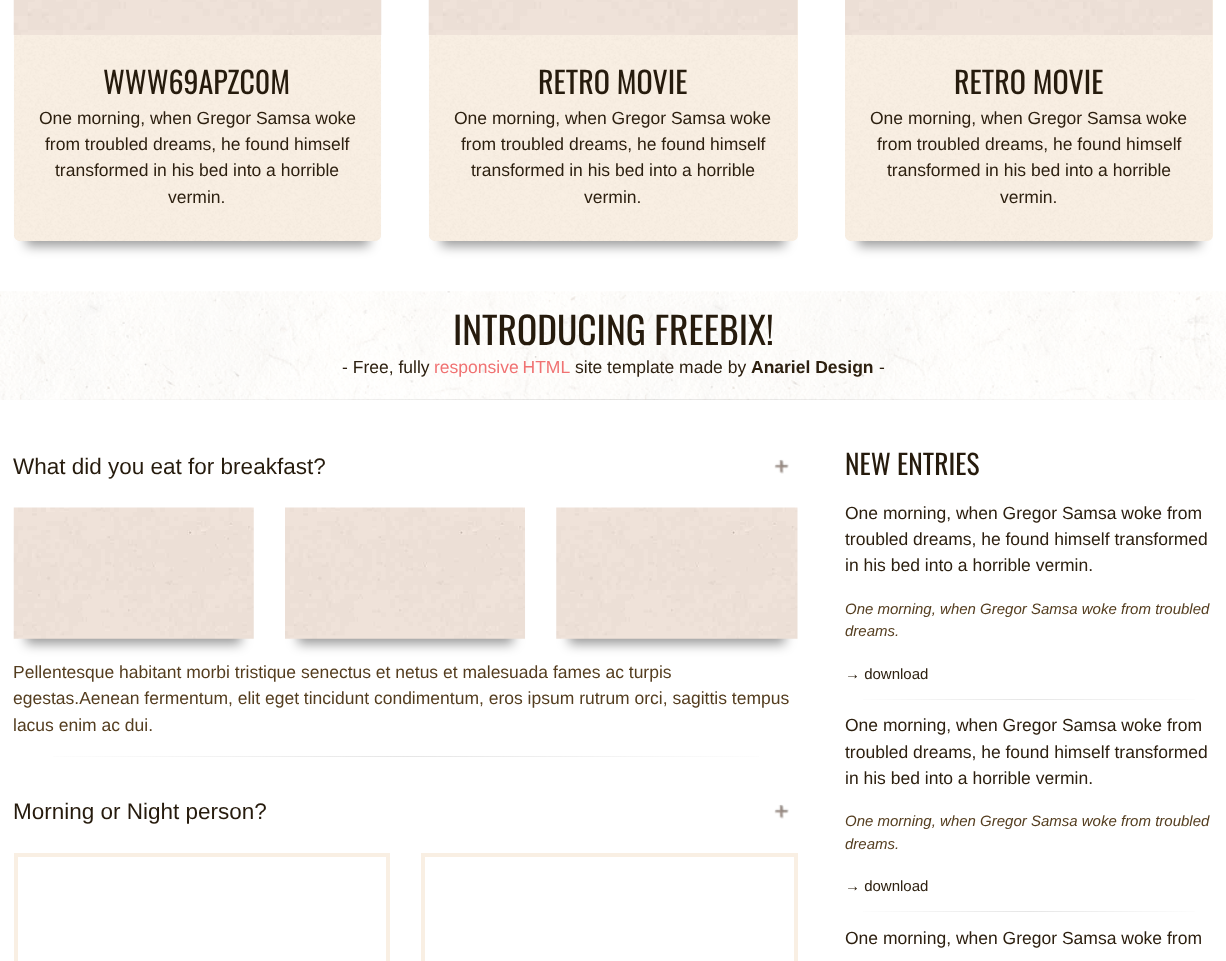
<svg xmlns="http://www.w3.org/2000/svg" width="1226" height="961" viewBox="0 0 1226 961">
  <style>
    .t1 { font: 30px Oswald; fill: #261b0d; }
    .t2 { font: 17.5px Liberation Sans; fill: #2d2010; }
    .t3 { font: 37.5px Oswald; fill: #261b0d; }
    .t4 { font: 17.5px Liberation Sans; fill: #f07272; }
    .t5 { font: bold 17.5px Liberation Sans; fill: #2d2010; }
    .t6 { font: 22.5px Liberation Sans; fill: #261b0d; }
    .t7 { font: 17.5px Liberation Sans; fill: #543d1f; }
    .t8 { font: 27.5px Oswald; fill: #261b0d; }
    .t9 { font: italic 15px Liberation Sans; fill: #543d1f; }
    .t10 { font: 15px Liberation Sans; fill: #2d2010; }
  </style>
  <defs>
    <linearGradient id="g1" gradientUnits="userSpaceOnUse" x1="14" y1="757" x2="798" y2="757"><stop offset="0" stop-color="#fff"/><stop offset="0.5" stop-color="#e6e6e6"/><stop offset="1" stop-color="#fff"/></linearGradient>
    <linearGradient id="g2" gradientUnits="userSpaceOnUse" x1="845" y1="699" x2="1213" y2="699"><stop offset="0" stop-color="#fff"/><stop offset="0.5" stop-color="#e6e6e6"/><stop offset="1" stop-color="#fff"/></linearGradient>
    <linearGradient id="g3" gradientUnits="userSpaceOnUse" x1="845" y1="912" x2="1213" y2="912"><stop offset="0" stop-color="#fff"/><stop offset="0.5" stop-color="#e6e6e6"/><stop offset="1" stop-color="#fff"/></linearGradient>
  </defs>
  <rect width="100%" height="100%" fill="#fff"/>
  <rect x="26" y="-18" width="343" height="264" fill="#00000066" filter="blur(6px)"/>
  <path d="M14-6H381V235C381 238.5 378.5 241 375 241H20C16.5 241 14 238.5 14 235Z" fill="#f9efe3"/>
  <image x="14" y="35" width="367" height="206" href="images/1.png"/>
  <image x="13" y="0" width="369" height="35" href="images/2.png"/>
  <text x="103" y="94" class="t1">WWW69APZC0M</text>
  <text x="39" y="124" class="t2">One morning, when Gregor Samsa woke</text>
  <text x="45" y="150" class="t2">from troubled dreams, he found himself</text>
  <text x="55" y="176" class="t2">transformed in his bed into a horrible</text>
  <text x="168" y="203" class="t2">vermin.</text>
  <rect x="441" y="-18" width="344" height="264" fill="#00000066" filter="blur(6px)"/>
  <path d="M429-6H798V235C798 238.5 795.5 241 792 241H435C431.5 241 429 238.5 429 235Z" fill="#f9efe3"/>
  <image x="429" y="35" width="368" height="206" href="images/3.png"/>
  <image x="428" y="0" width="370" height="35" href="images/4.png"/>
  <text x="538" y="94" class="t1">RETRO MOVIE</text>
  <text x="454" y="124" class="t2">One morning, when Gregor Samsa woke</text>
  <text x="461" y="150" class="t2">from troubled dreams, he found himself</text>
  <text x="471" y="176" class="t2">transformed in his bed into a horrible</text>
  <text x="584" y="203" class="t2">vermin.</text>
  <rect x="858" y="-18" width="342" height="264" fill="#00000066" filter="blur(6px)"/>
  <path d="M845-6H1213V235C1213 238.5 1210.5 241 1207 241H851C847.5 241 845 238.5 845 235Z" fill="#f9efe3"/>
  <image x="845" y="35" width="367" height="206" href="images/5.png"/>
  <image x="845" y="0" width="368" height="35" href="images/6.png"/>
  <text x="954" y="94" class="t1">RETRO MOVIE</text>
  <text x="870" y="124" class="t2">One morning, when Gregor Samsa woke</text>
  <text x="877" y="150" class="t2">from troubled dreams, he found himself</text>
  <text x="887" y="176" class="t2">transformed in his bed into a horrible</text>
  <text x="1000" y="203" class="t2">vermin.</text>
  <image x="0" y="291" width="1226" height="109" href="images/7.png"/>
  <text x="453" y="345" class="t3">INTRODUCING FREEBIX!</text>
  <text x="342" y="373" class="t2">- Free, fully</text>
  <text x="434" y="373" word-spacing="-1" class="t4">responsive HTML</text>
  <text x="575" y="373" class="t2">site template made by</text>
  <text x="751" y="373" class="t5">Anariel Design</text>
  <text x="879" y="373" class="t2">-</text>
  <image x="774" y="459" width="15" height="15" href="images/8.png"/>
  <text x="13" y="474" class="t6">What did you eat for breakfast?</text>
  <rect x="26" y="538" width="215" height="106" fill="#00000066" filter="blur(6px)"/>
  <image x="13" y="507" width="241" height="132" href="images/9.png"/>
  <rect x="298" y="538" width="215" height="106" fill="#00000066" filter="blur(6px)"/>
  <image x="285" y="507" width="240" height="132" href="images/10.png"/>
  <rect x="569" y="538" width="216" height="106" fill="#00000066" filter="blur(6px)"/>
  <image x="556" y="507" width="242" height="132" href="images/11.png"/>
  <text x="13" y="678" class="t7">Pellentesque habitant morbi tristique senectus et netus et malesuada fames ac turpis</text>
  <text x="13" y="704" class="t7">egestas.Aenean fermentum, elit eget tincidunt condimentum, eros ipsum rutrum orci, sagittis tempus</text>
  <text x="13" y="731" class="t7">lacus enim ac dui.</text>
  <rect x="53" y="756" width="706" height="1" fill="url(#g1)"/>
  <image x="774" y="804" width="15" height="15" href="images/8.png"/>
  <text x="13" y="819" class="t6">Morning or Night person?</text>
  <rect x="16" y="855" width="372" height="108" fill="none" stroke="#f9efe3" stroke-width="4"/>
  <rect x="423" y="855" width="373" height="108" fill="none" stroke="#f9efe3" stroke-width="4"/>
  <text x="845" y="475" class="t8">NEW ENTRIES</text>
  <text x="845" y="519" class="t2">One morning, when Gregor Samsa woke from</text>
  <text x="845" y="545" class="t2">troubled dreams, he found himself transformed</text>
  <text x="845" y="571" class="t2">in his bed into a horrible vermin.</text>
  <text x="845" y="614" class="t9">One morning, when Gregor Samsa woke from troubled</text>
  <text x="845" y="636" class="t9">dreams.</text>
  <text x="845" y="679" class="t10">→ download</text>
  <rect x="863" y="699" width="332" height="1" fill="url(#g2)"/>
  <text x="845" y="731" class="t2">One morning, when Gregor Samsa woke from</text>
  <text x="845" y="758" class="t2">troubled dreams, he found himself transformed</text>
  <text x="845" y="784" class="t2">in his bed into a horrible vermin.</text>
  <text x="845" y="826" class="t9">One morning, when Gregor Samsa woke from troubled</text>
  <text x="845" y="849" class="t9">dreams.</text>
  <text x="845" y="891" class="t10">→ download</text>
  <rect x="863" y="911" width="332" height="1" fill="url(#g3)"/>
  <text x="845" y="944" class="t2">One morning, when Gregor Samsa woke from</text>
</svg>
